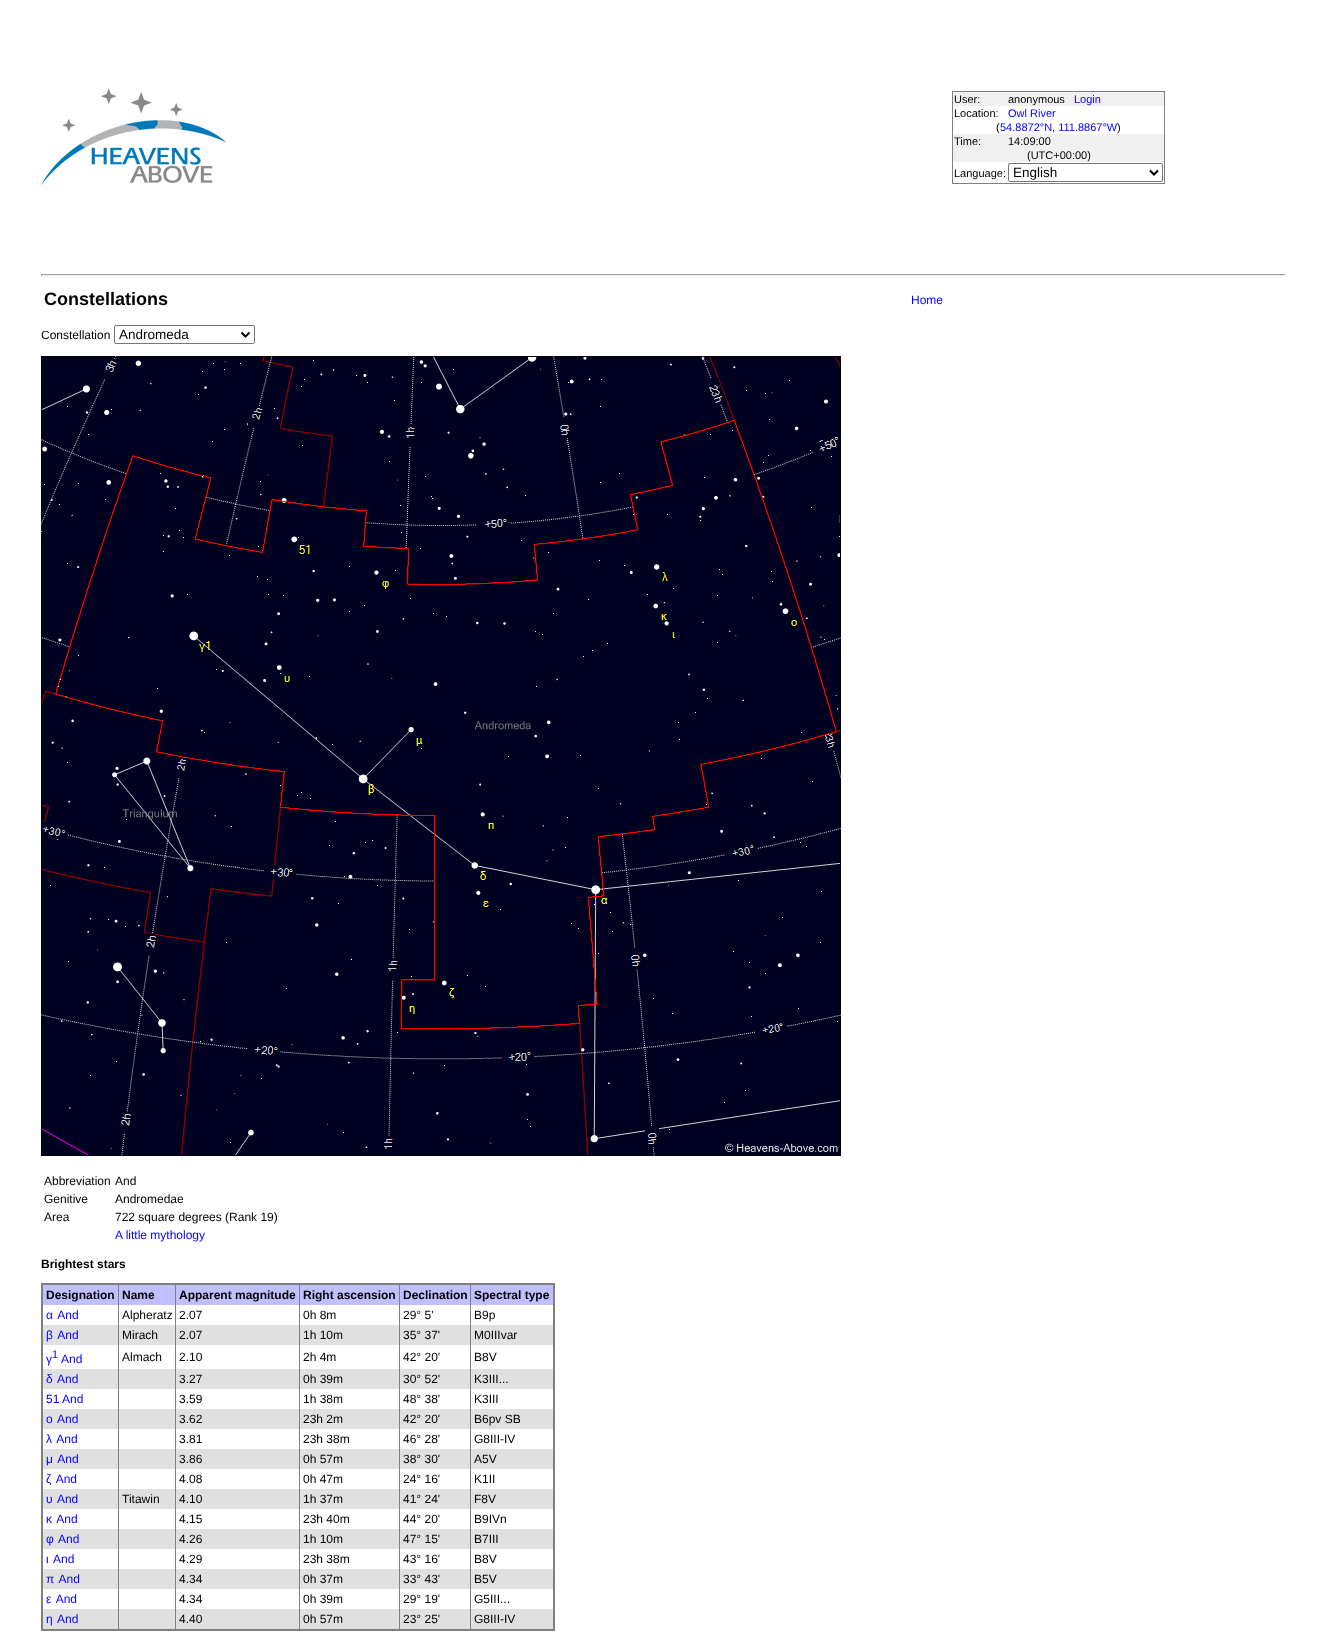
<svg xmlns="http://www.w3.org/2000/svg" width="1327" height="1639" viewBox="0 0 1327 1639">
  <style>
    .t1 { font: 11px Liberation Sans; fill: #000; }
    .t2 { font: 11px Liberation Sans; fill: #00f; }
    .t3 { font: 13.5px Liberation Sans; fill: #000; }
    .t4 { font: bold 18px Liberation Sans; fill: #000; }
    .t5 { font: 12px Liberation Sans; fill: #00f; }
    .t6 { font: 12px Liberation Sans; fill: #000; }
    .t7 { font: bold 12px Liberation Sans; fill: #000; }
  </style>
  <rect width="100%" height="100%" fill="#fff"/>
  <image x="41" y="88" width="185" height="97" href="images/1.png"/>
  <rect x="953" y="92" width="211" height="70" fill="#f0f0f0"/>
  <rect x="952" y="91" width="213" height="1" fill="#808080"/>
  <rect x="1164" y="91" width="1" height="93" fill="#808080"/>
  <rect x="952" y="183" width="213" height="1" fill="#808080"/>
  <rect x="952" y="91" width="1" height="93" fill="#808080"/>
  <text x="954" y="103" class="t1">User:</text>
  <text x="1008" y="103" class="t1">anonymous</text>
  <text x="1074" y="103" class="t2">Login</text>
  <rect x="953" y="106" width="211" height="28" fill="#fff"/>
  <text x="954" y="117" class="t1">Location:</text>
  <text x="1008" y="117" class="t2">Owl River</text>
  <text x="996" y="131" class="t1">(</text>
  <text x="1000" y="131" class="t2">54.8872°N, 111.8867°W</text>
  <text x="1117" y="131" class="t1">)</text>
  <text x="954" y="145" class="t1">Time:</text>
  <text x="1008" y="145" class="t1">14:09:00</text>
  <text x="1027" y="159" class="t1">(UTC+00:00)</text>
  <text x="954" y="177" class="t1">Language:</text>
  <rect x="1008.5" y="163.5" width="154" height="18" rx="1.5" fill="none" stroke="#767676"/>
  <path d="M1150 170.5L1154 174.5L1158 170.5" fill="none" stroke="#000" stroke-width="2"/>
  <text x="1013" y="177" class="t3">English</text>
  <rect x="41" y="274" width="1245" height="1" fill="#9f9f9f"/>
  <rect x="1285" y="274" width="1" height="2" fill="#eee"/>
  <rect x="41" y="275" width="1245" height="1" fill="#eee"/>
  <rect x="41" y="274" width="1" height="2" fill="#9f9f9f"/>
  <text x="44" y="305" class="t4">Constellations</text>
  <text x="911" y="304" class="t5">Home</text>
  <text x="41" y="339" class="t6">Constellation</text>
  <rect x="114.5" y="325.5" width="140" height="18" rx="1.5" fill="none" stroke="#767676"/>
  <path d="M241.5 332.5L245.5 336.5L249.5 332.5" fill="none" stroke="#000" stroke-width="2"/>
  <text x="119" y="339" class="t3">Andromeda</text>
  <image x="41" y="356" width="800" height="800" href="images/2.png"/>
  <text x="44" y="1185" class="t6">Abbreviation</text>
  <text x="115" y="1185" class="t6">And</text>
  <text x="44" y="1203" class="t6">Genitive</text>
  <text x="115" y="1203" class="t6">Andromedae</text>
  <text x="44" y="1221" class="t6">Area</text>
  <text x="115" y="1221" class="t6">722 square degrees (Rank 19)</text>
  <text x="115" y="1239" class="t5">A little mythology</text>
  <text x="41" y="1268" class="t7">Brightest stars</text>
  <rect x="43" y="1285" width="510" height="20" fill="#c0c0ff"/>
  <rect x="43" y="1325" width="510" height="20" fill="#e0e0e0"/>
  <rect x="43" y="1369" width="510" height="20" fill="#e0e0e0"/>
  <rect x="43" y="1409" width="510" height="20" fill="#e0e0e0"/>
  <rect x="43" y="1449" width="510" height="20" fill="#e0e0e0"/>
  <rect x="43" y="1489" width="510" height="20" fill="#e0e0e0"/>
  <rect x="43" y="1529" width="510" height="20" fill="#e0e0e0"/>
  <rect x="43" y="1569" width="510" height="20" fill="#e0e0e0"/>
  <rect x="43" y="1609" width="510" height="20" fill="#e0e0e0"/>
  <rect x="118" y="1284" width="1" height="347" fill="#808080"/>
  <rect x="175" y="1284" width="1" height="347" fill="#808080"/>
  <rect x="299" y="1284" width="1" height="347" fill="#808080"/>
  <rect x="399" y="1284" width="1" height="347" fill="#808080"/>
  <rect x="470" y="1284" width="1" height="347" fill="#808080"/>
  <rect x="41" y="1283" width="514" height="2" fill="#808080"/>
  <rect x="553" y="1283" width="2" height="348" fill="#808080"/>
  <rect x="41" y="1629" width="514" height="2" fill="#808080"/>
  <rect x="41" y="1283" width="2" height="348" fill="#808080"/>
  <text x="46" y="1299" class="t7">Designation</text>
  <text x="122" y="1299" class="t7">Name</text>
  <text x="179" y="1299" class="t7">Apparent magnitude</text>
  <text x="303" y="1299" class="t7">Right ascension</text>
  <text x="403" y="1299" class="t7">Declination</text>
  <text x="474" y="1299" class="t7">Spectral type</text>
  <text x="46" y="1319" word-spacing="1" class="t5">α And</text>
  <text x="122" y="1319" class="t6">Alpheratz</text>
  <text x="179" y="1319" class="t6">2.07</text>
  <text x="303" y="1319" class="t6">0h 8m</text>
  <text x="403" y="1319" class="t6">29° 5'</text>
  <text x="474" y="1319" class="t6">B9p</text>
  <text x="46" y="1339" word-spacing="1" class="t5">β And</text>
  <text x="122" y="1339" class="t6">Mirach</text>
  <text x="179" y="1339" class="t6">2.07</text>
  <text x="303" y="1339" class="t6">1h 10m</text>
  <text x="403" y="1339" class="t6">35° 37'</text>
  <text x="474" y="1339" class="t6">M0IIIvar</text>
  <text x="46" y="1363" class="t5">γ</text>
  <text x="52" y="1358" class="t2">1</text>
  <text x="61" y="1363" class="t5">And</text>
  <text x="122" y="1361" class="t6">Almach</text>
  <text x="179" y="1361" class="t6">2.10</text>
  <text x="303" y="1361" class="t6">2h 4m</text>
  <text x="403" y="1361" class="t6">42° 20'</text>
  <text x="474" y="1361" class="t6">B8V</text>
  <text x="46" y="1383" word-spacing="1" class="t5">δ And</text>
  <text x="179" y="1383" class="t6">3.27</text>
  <text x="303" y="1383" class="t6">0h 39m</text>
  <text x="403" y="1383" class="t6">30° 52'</text>
  <text x="474" y="1383" class="t6">K3III...</text>
  <text x="46" y="1403" class="t5">51 And</text>
  <text x="179" y="1403" class="t6">3.59</text>
  <text x="303" y="1403" class="t6">1h 38m</text>
  <text x="403" y="1403" class="t6">48° 38'</text>
  <text x="474" y="1403" class="t6">K3III</text>
  <text x="46" y="1423" word-spacing="1" class="t5">ο And</text>
  <text x="179" y="1423" class="t6">3.62</text>
  <text x="303" y="1423" class="t6">23h 2m</text>
  <text x="403" y="1423" class="t6">42° 20'</text>
  <text x="474" y="1423" class="t6">B6pv SB</text>
  <text x="46" y="1443" word-spacing="1" class="t5">λ And</text>
  <text x="179" y="1443" class="t6">3.81</text>
  <text x="303" y="1443" class="t6">23h 38m</text>
  <text x="403" y="1443" class="t6">46° 28'</text>
  <text x="474" y="1443" class="t6">G8III-IV</text>
  <text x="46" y="1463" word-spacing="1" class="t5">μ And</text>
  <text x="179" y="1463" class="t6">3.86</text>
  <text x="303" y="1463" class="t6">0h 57m</text>
  <text x="403" y="1463" class="t6">38° 30'</text>
  <text x="474" y="1463" class="t6">A5V</text>
  <text x="46" y="1483" word-spacing="1" class="t5">ζ And</text>
  <text x="179" y="1483" class="t6">4.08</text>
  <text x="303" y="1483" class="t6">0h 47m</text>
  <text x="403" y="1483" class="t6">24° 16'</text>
  <text x="474" y="1483" class="t6">K1II</text>
  <text x="46" y="1503" word-spacing="1" class="t5">υ And</text>
  <text x="122" y="1503" class="t6">Titawin</text>
  <text x="179" y="1503" class="t6">4.10</text>
  <text x="303" y="1503" class="t6">1h 37m</text>
  <text x="403" y="1503" class="t6">41° 24'</text>
  <text x="474" y="1503" class="t6">F8V</text>
  <text x="46" y="1523" word-spacing="1" class="t5">κ And</text>
  <text x="179" y="1523" class="t6">4.15</text>
  <text x="303" y="1523" class="t6">23h 40m</text>
  <text x="403" y="1523" class="t6">44° 20'</text>
  <text x="474" y="1523" class="t6">B9IVn</text>
  <text x="46" y="1543" word-spacing="1" class="t5">φ And</text>
  <text x="179" y="1543" class="t6">4.26</text>
  <text x="303" y="1543" class="t6">1h 10m</text>
  <text x="403" y="1543" class="t6">47° 15'</text>
  <text x="474" y="1543" class="t6">B7III</text>
  <text x="46" y="1563" word-spacing="1" class="t5">ι And</text>
  <text x="179" y="1563" class="t6">4.29</text>
  <text x="303" y="1563" class="t6">23h 38m</text>
  <text x="403" y="1563" class="t6">43° 16'</text>
  <text x="474" y="1563" class="t6">B8V</text>
  <text x="46" y="1583" word-spacing="1" class="t5">π And</text>
  <text x="179" y="1583" class="t6">4.34</text>
  <text x="303" y="1583" class="t6">0h 37m</text>
  <text x="403" y="1583" class="t6">33° 43'</text>
  <text x="474" y="1583" class="t6">B5V</text>
  <text x="46" y="1603" word-spacing="1" class="t5">ε And</text>
  <text x="179" y="1603" class="t6">4.34</text>
  <text x="303" y="1603" class="t6">0h 39m</text>
  <text x="403" y="1603" class="t6">29° 19'</text>
  <text x="474" y="1603" class="t6">G5III...</text>
  <text x="46" y="1623" word-spacing="1" class="t5">η And</text>
  <text x="179" y="1623" class="t6">4.40</text>
  <text x="303" y="1623" class="t6">0h 57m</text>
  <text x="403" y="1623" class="t6">23° 25'</text>
  <text x="474" y="1623" class="t6">G8III-IV</text>
</svg>
